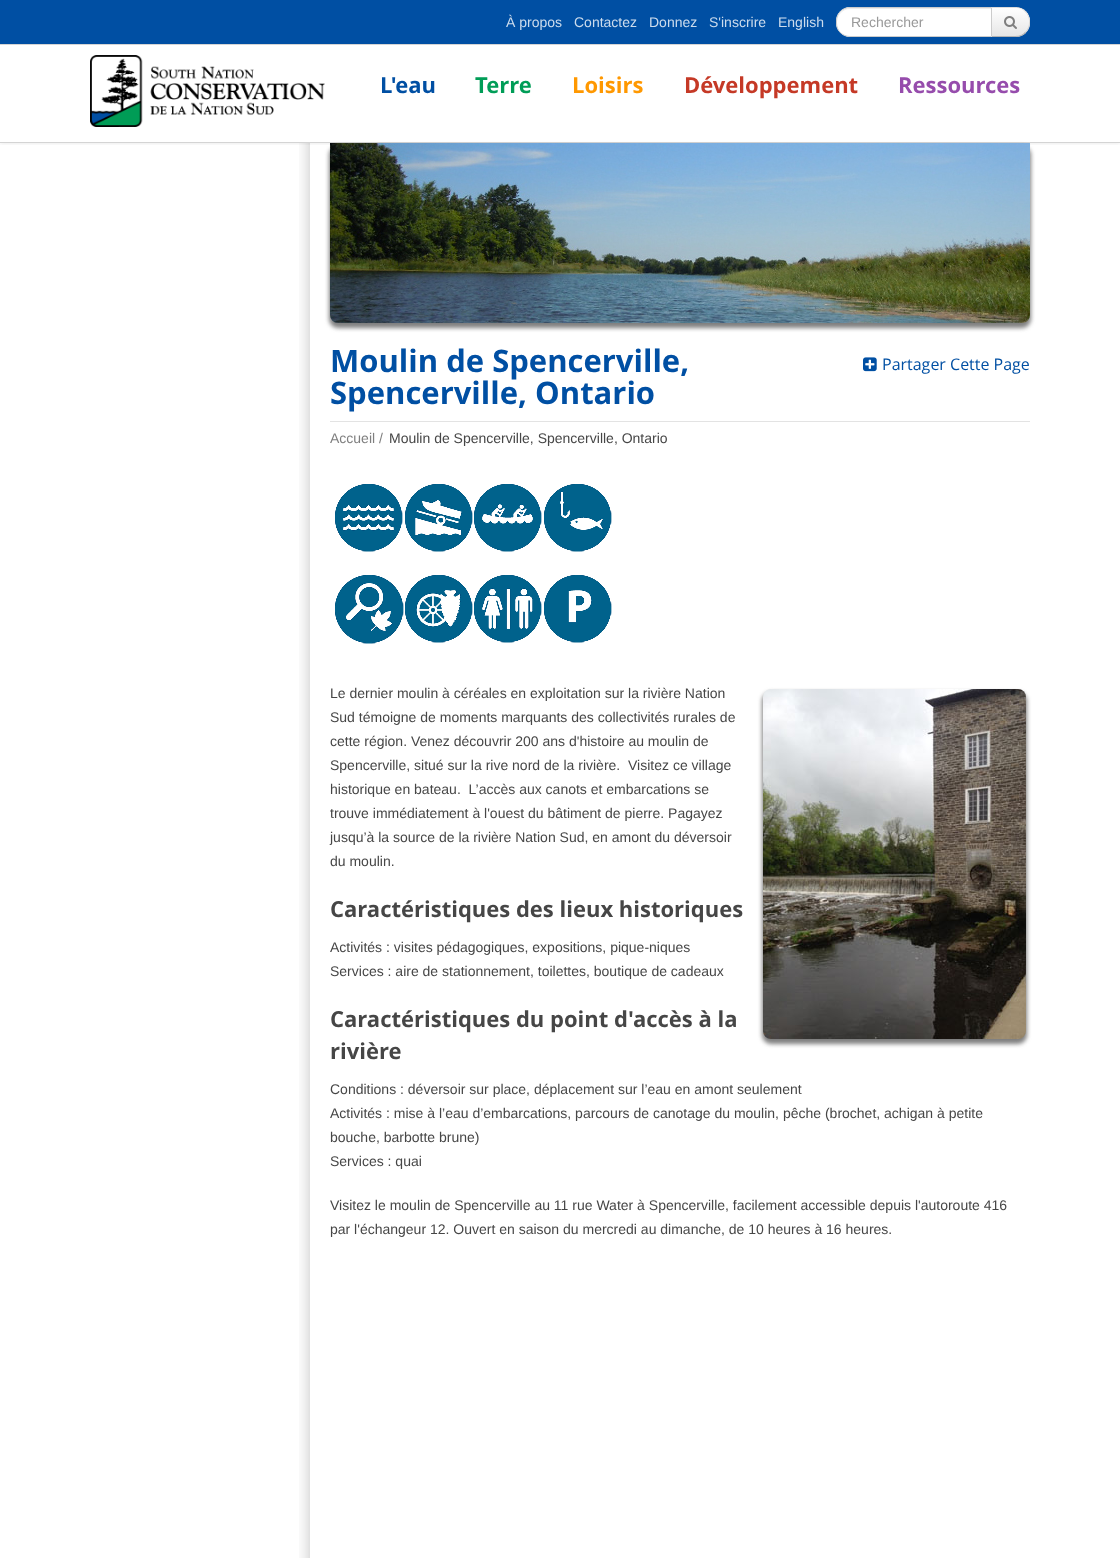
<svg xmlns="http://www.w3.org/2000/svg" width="1120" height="1558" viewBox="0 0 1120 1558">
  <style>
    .t1 { font: 14px Liberation Sans; fill: #ccdced; }
    .t2 { font: 14px Liberation Sans; fill: #999; }
    .t3 { font: bold 22px Open Sans; fill: #004fa3; }
    .t4 { font: bold 22px Open Sans; fill: #009d57; }
    .t5 { font: bold 22px Open Sans; fill: #ff9800; }
    .t6 { font: bold 22px Open Sans; fill: #c53926; }
    .t7 { font: bold 22px Open Sans; fill: #964cac; }
    .t8 { font: bold 31px Open Sans; fill: #004fa3; }
    .t9 { font: 16px Open Sans; fill: #004fa3; }
    .t10 { font: 14px Liberation Sans; fill: #7f7f7f; }
    .t11 { font: 14px Liberation Sans; fill: #464646; }
    .t12 { font: bold 22px Open Sans; fill: #464646; }
  </style>
  <defs>
    <clipPath id="clip1"><path d="M991 7H1016C1023.5 7 1030 13.5 1030 21V23C1030 30.5 1023.5 37 1016 37H991Z"/></clipPath>
    <linearGradient id="g1" gradientUnits="userSpaceOnUse" x1="1011" y1="8" x2="1011" y2="36"><stop offset="0" stop-color="#fff"/><stop offset="1" stop-color="#e6e6e6"/></linearGradient>
    <clipPath id="clip2"><rect x="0" y="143" width="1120" height="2"/></clipPath>
  </defs>
  <rect width="100%" height="100%" fill="#fff"/>
  <rect x="0" y="0" width="1120" height="44" fill="#004fa3"/>
  <text x="506" y="27" class="t1">À propos</text>
  <text x="574" y="27" class="t1">Contactez</text>
  <text x="649" y="27" class="t1">Donnez</text>
  <text x="709" y="27" class="t1">S'inscrire</text>
  <text x="778" y="27" class="t1">English</text>
  <path d="M991 7H1016C1023.5 7 1030 13.5 1030 21V23C1030 30.5 1023.5 37 1016 37H991Z" fill="#f5f5f5"/>
  <g clip-path="url(#clip1)">
    <rect x="992" y="8" width="38" height="28" fill="url(#g1)"/>
  </g>
  <path d="M991 7L992 8H1016C1019.5 8 1023 9.5 1025 12L1026 11C1023 8.5 1020 7 1016 7Z" fill="#0000001a"/>
  <path d="M1030 23C1030 18.5 1029 14.5 1026 11L1025 12C1030.5 17 1030.5 27 1025 32L1026 33C1028.5 30 1030 27 1030 23Z" fill="#0000001a"/>
  <path d="M1016 37C1020 37 1023 35.5 1026 33L1025 32C1023 34.5 1019.5 36 1016 36H992L991 37Z" fill="#b3b3b3"/>
  <path d="M850 7H992V37H850C842.5 37 836 30.5 836 23V21C836 13.5 842.5 7 850 7Z" fill="#fff"/>
  <path d="M850 9H991V8H850C843 8 837 14 837 21V22C837 15 843 9 850 9Z" fill="#ececec"/>
  <path d="M850 7.5H991.5V36.5H850C842.5 36.5 836.5 30.5 836.5 23V21C836.5 13.5 842.5 7.5 850 7.5Z" fill="none" stroke="#ccc"/>
  <text x="851" y="27" class="t2">Rechercher</text>
  <image x="1004" y="16" width="13" height="13" href="images/1.png"/>
  <g clip-path="url(#clip2)">
    <rect x="0" y="45" width="1120" height="99" fill="#00000012" filter="blur(2px)"/>
  </g>
  <rect x="0" y="44" width="1120" height="1" fill="#d4d4d4"/>
  <rect x="0" y="142" width="1120" height="1" fill="#d4d4d4"/>
  <image x="90" y="55" width="235" height="72" href="images/2.png"/>
  <text x="380" y="93" class="t3">L'eau</text>
  <text x="475" y="93" class="t4">Terre</text>
  <text x="572" y="93" class="t5">Loisirs</text>
  <text x="684" y="93" class="t6">Développement</text>
  <text x="898" y="93" class="t7">Ressources</text>
  <image x="299" y="143" width="11" height="1415" href="images/3.png"/>
  <rect x="329" y="146" width="702" height="182" rx="9" fill="#808080" filter="blur(2px)"/>
  <image x="330" y="143" width="700" height="180" href="images/4.png"/>
  <text x="330" y="372" class="t8">Moulin de Spencerville,</text>
  <text x="330" y="404" class="t8">Spencerville, Ontario</text>
  <image x="863" y="357" width="14" height="15" href="images/5.png"/>
  <text x="882" y="370" class="t9">Partager Cette Page</text>
  <rect x="330" y="421" width="700" height="1" fill="#e3e3e3"/>
  <text x="330" y="443" class="t10">Accueil /</text>
  <text x="389" y="443" class="t11">Moulin de Spencerville, Spencerville, Ontario</text>
  <image x="335" y="484" width="277" height="160" href="images/6.png"/>
  <text x="330" y="698" class="t11">Le dernier moulin à céréales en exploitation sur la rivière Nation</text>
  <rect x="762" y="692" width="265" height="352" rx="9" fill="#808080" filter="blur(2px)"/>
  <image x="763" y="689" width="263" height="350" href="images/7.png"/>
  <text x="330" y="722" class="t11">Sud témoigne de moments marquants des collectivités rurales de</text>
  <text x="330" y="746" class="t11">cette région. Venez découvrir 200 ans d'histoire au moulin de</text>
  <text x="330" y="770" class="t11" xml:space="preserve">Spencerville, situé sur la rive nord de la rivière.  Visitez ce village</text>
  <text x="330" y="794" class="t11" xml:space="preserve">historique en bateau.  L’accès aux canots et embarcations se</text>
  <text x="330" y="818" class="t11">trouve immédiatement à l'ouest du bâtiment de pierre. Pagayez</text>
  <text x="330" y="842" class="t11">jusqu’à la source de la rivière Nation Sud, en amont du déversoir</text>
  <text x="330" y="866" class="t11">du moulin.</text>
  <text x="330" y="917" class="t12">Caractéristiques des lieux historiques</text>
  <text x="330" y="952" class="t11">Activités : visites pédagogiques, expositions, pique-niques</text>
  <text x="330" y="976" class="t11">Services : aire de stationnement, toilettes, boutique de cadeaux</text>
  <text x="330" y="1027" class="t12">Caractéristiques du point d'accès à la</text>
  <text x="330" y="1059" class="t12">rivière</text>
  <text x="330" y="1094" class="t11">Conditions : déversoir sur place, déplacement sur l’eau en amont seulement</text>
  <text x="330" y="1118" class="t11">Activités : mise à l’eau d’embarcations, parcours de canotage du moulin, pêche (brochet, achigan à petite</text>
  <text x="330" y="1142" class="t11">bouche, barbotte brune)</text>
  <text x="330" y="1166" class="t11">Services : quai</text>
  <text x="330" y="1210" class="t11">Visitez le moulin de Spencerville au 11 rue Water à Spencerville, facilement accessible depuis l'autoroute 416</text>
  <text x="330" y="1234" class="t11">par l'échangeur 12. Ouvert en saison du mercredi au dimanche, de 10 heures à 16 heures.</text>
</svg>
